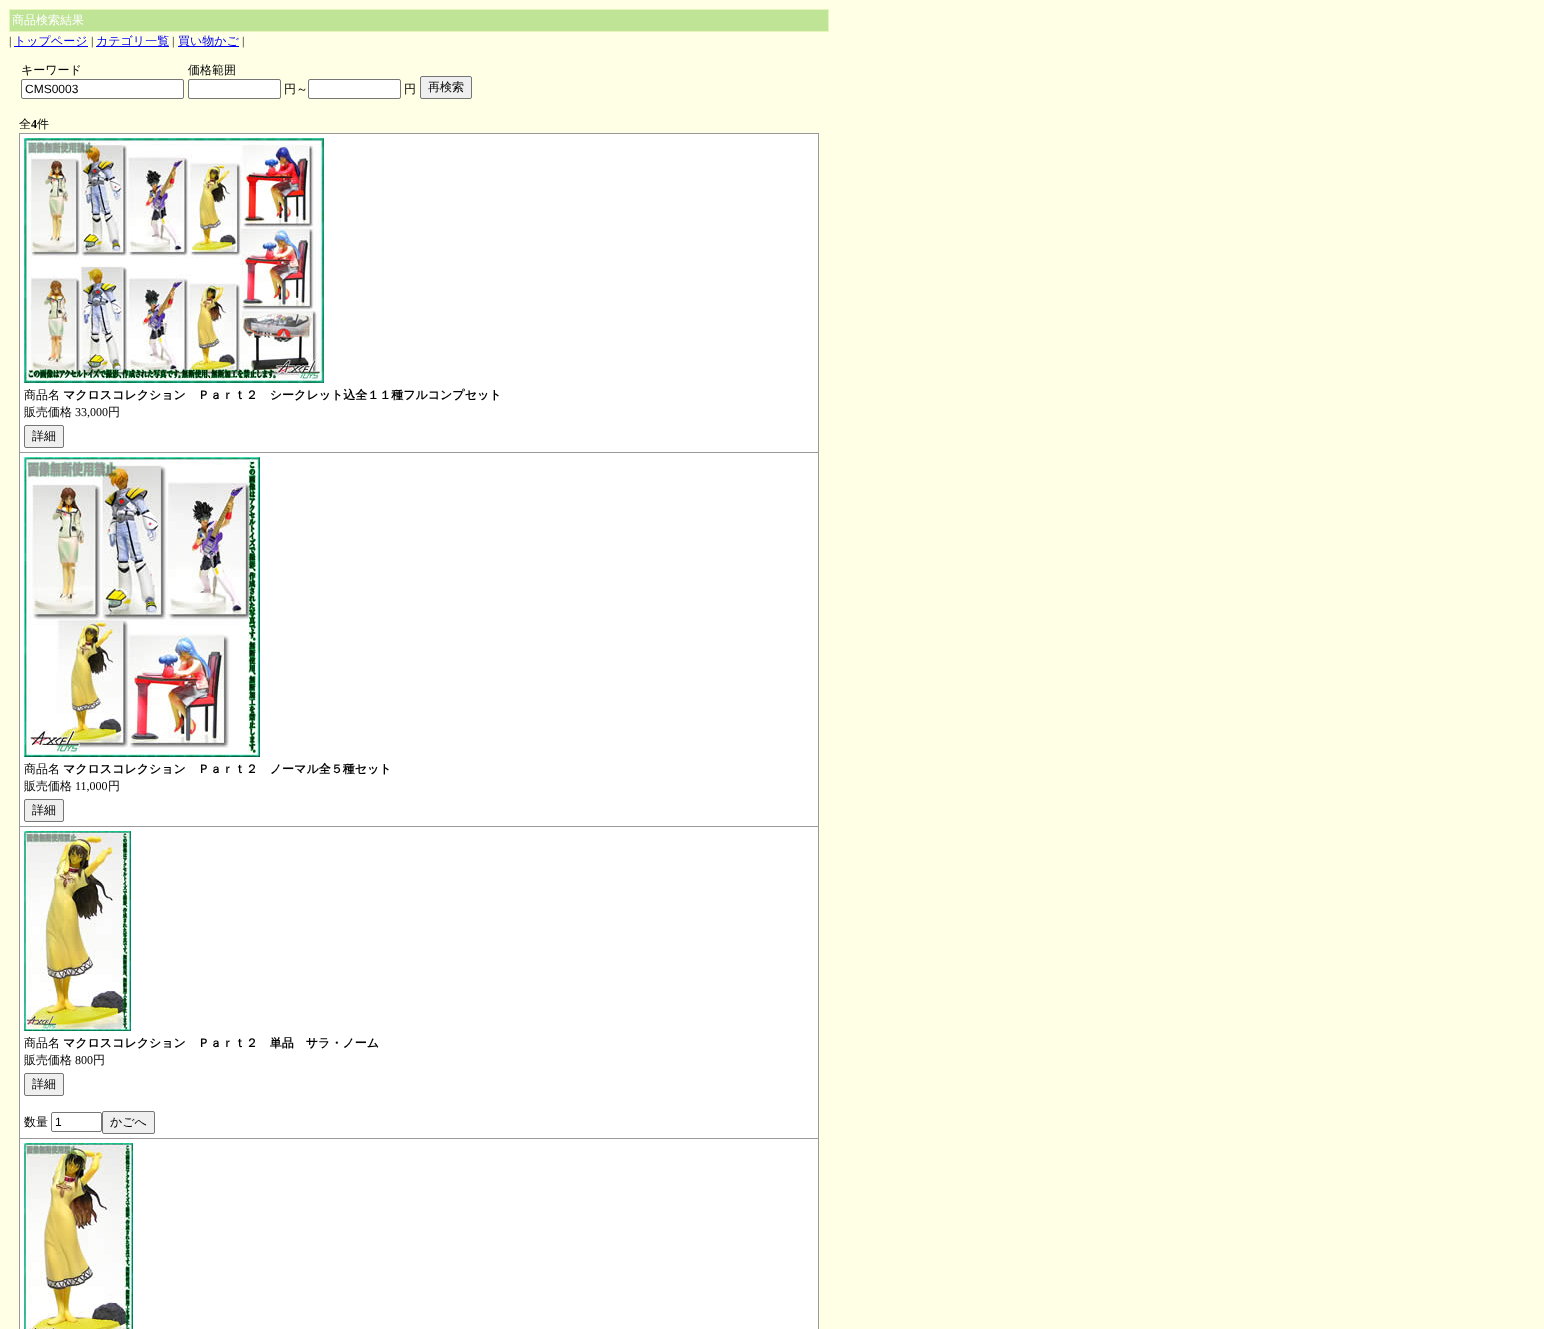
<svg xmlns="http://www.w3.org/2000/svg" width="1544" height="1329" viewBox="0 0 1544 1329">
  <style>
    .t1 { font: 500 12px WenQuanYi Zen Hei; fill: #fff; }
    .t2 { font: 12px Liberation Serif; fill: #000; }
    .t3 { font: 500 12px WenQuanYi Zen Hei; fill: #00e; }
    .t4 { font: 500 12px WenQuanYi Zen Hei; fill: #000; }
    .t5 { font: 12px Liberation Sans; fill: #000; }
    .t6 { font: bold 12px Liberation Serif; fill: #000; }
    .t7 { font: bold 12px WenQuanYi Zen Hei; fill: #000; }
  </style>
  <rect width="100%" height="100%" fill="#ffffe6"/>
  <rect x="9" y="9" width="820" height="23" fill="#e6f5bc"/>
  <rect x="10" y="10" width="818" height="21" fill="#bfe496"/>
  <text x="12" y="24" class="t1">商品検索結果</text>
  <text x="9" y="45" class="t2">|</text>
  <rect x="14" y="46" width="74" height="1" fill="#00e"/>
  <text x="14" y="45" class="t3">トップページ</text>
  <text x="91" y="45" class="t2">|</text>
  <rect x="96" y="46" width="73" height="1" fill="#00e"/>
  <text x="96" y="45" class="t3">カテゴリ一覧</text>
  <text x="172" y="45" class="t2">|</text>
  <rect x="178" y="46" width="61" height="1" fill="#00e"/>
  <text x="178" y="45" class="t3">買い物かご</text>
  <text x="242" y="45" class="t2">|</text>
  <text x="21" y="74" class="t4">キーワード</text>
  <rect x="21.5" y="79.5" width="162" height="19" rx="1.5" fill="#fff" stroke="#767676"/>
  <text x="25" y="93" class="t5">CMS0003</text>
  <text x="188" y="74" class="t4">価格範囲</text>
  <rect x="188.5" y="79.5" width="92" height="19" rx="1.5" fill="#fff" stroke="#767676"/>
  <text x="284" y="93" class="t4">円～</text>
  <rect x="308.5" y="79.5" width="92" height="19" rx="1.5" fill="#fff" stroke="#767676"/>
  <text x="404" y="93" class="t4">円</text>
  <rect x="420.5" y="76.5" width="51" height="22" rx="1.5" fill="#efefef" stroke="#767676"/>
  <text x="428" y="91" class="t4">再検索</text>
  <text x="19" y="128" class="t4">全</text>
  <text x="31" y="128" class="t6">4</text>
  <text x="37" y="128" class="t4">件</text>
  <rect x="19" y="133" width="800" height="1196" fill="#999"/>
  <rect x="20" y="134" width="798" height="318" fill="#fff"/>
  <image x="24" y="138" width="300" height="245" href="images/1.png"/>
  <text x="24" y="399" class="t4">商品名</text>
  <text x="63" y="399" class="t7">マクロスコレクション　Ｐａｒｔ２　シークレット込全１１種フルコンプセット</text>
  <text x="24" y="416" class="t4">販売価格</text>
  <text x="75" y="416" class="t2">33,000</text>
  <text x="108" y="416" class="t4">円</text>
  <rect x="24.5" y="425.5" width="39" height="22" rx="1.5" fill="#efefef" stroke="#767676"/>
  <text x="32" y="440" class="t4">詳細</text>
  <rect x="20" y="453" width="798" height="373" fill="#fff"/>
  <image x="24" y="457" width="236" height="300" href="images/2.png"/>
  <text x="24" y="773" class="t4">商品名</text>
  <text x="63" y="773" class="t7">マクロスコレクション　Ｐａｒｔ２　ノーマル全５種セット</text>
  <text x="24" y="790" class="t4">販売価格</text>
  <text x="75" y="790" class="t2">11,000</text>
  <text x="108" y="790" class="t4">円</text>
  <rect x="24.5" y="799.5" width="39" height="22" rx="1.5" fill="#efefef" stroke="#767676"/>
  <text x="32" y="814" class="t4">詳細</text>
  <rect x="20" y="827" width="798" height="311" fill="#fff"/>
  <image x="24" y="831" width="107" height="200" href="images/3.png"/>
  <text x="24" y="1047" class="t4">商品名</text>
  <text x="63" y="1047" class="t7">マクロスコレクション　Ｐａｒｔ２　単品　サラ・ノーム</text>
  <text x="24" y="1064" class="t4">販売価格</text>
  <text x="75" y="1064" class="t2">800</text>
  <text x="93" y="1064" class="t4">円</text>
  <rect x="24.5" y="1073.5" width="39" height="22" rx="1.5" fill="#efefef" stroke="#767676"/>
  <text x="32" y="1088" class="t4">詳細</text>
  <text x="24" y="1126" class="t4">数量</text>
  <rect x="51.5" y="1112.5" width="50" height="19" rx="1.5" fill="none" stroke="#767676"/>
  <text x="55" y="1126" class="t5">1</text>
  <rect x="102.5" y="1111.5" width="52" height="22" rx="1.5" fill="#efefef" stroke="#767676"/>
  <text x="110" y="1126" class="t4">かごへ</text>
  <rect x="20" y="1139" width="798" height="190" fill="#fff"/>
  <image x="24" y="1143" width="109" height="186" href="images/4.png"/>
</svg>
